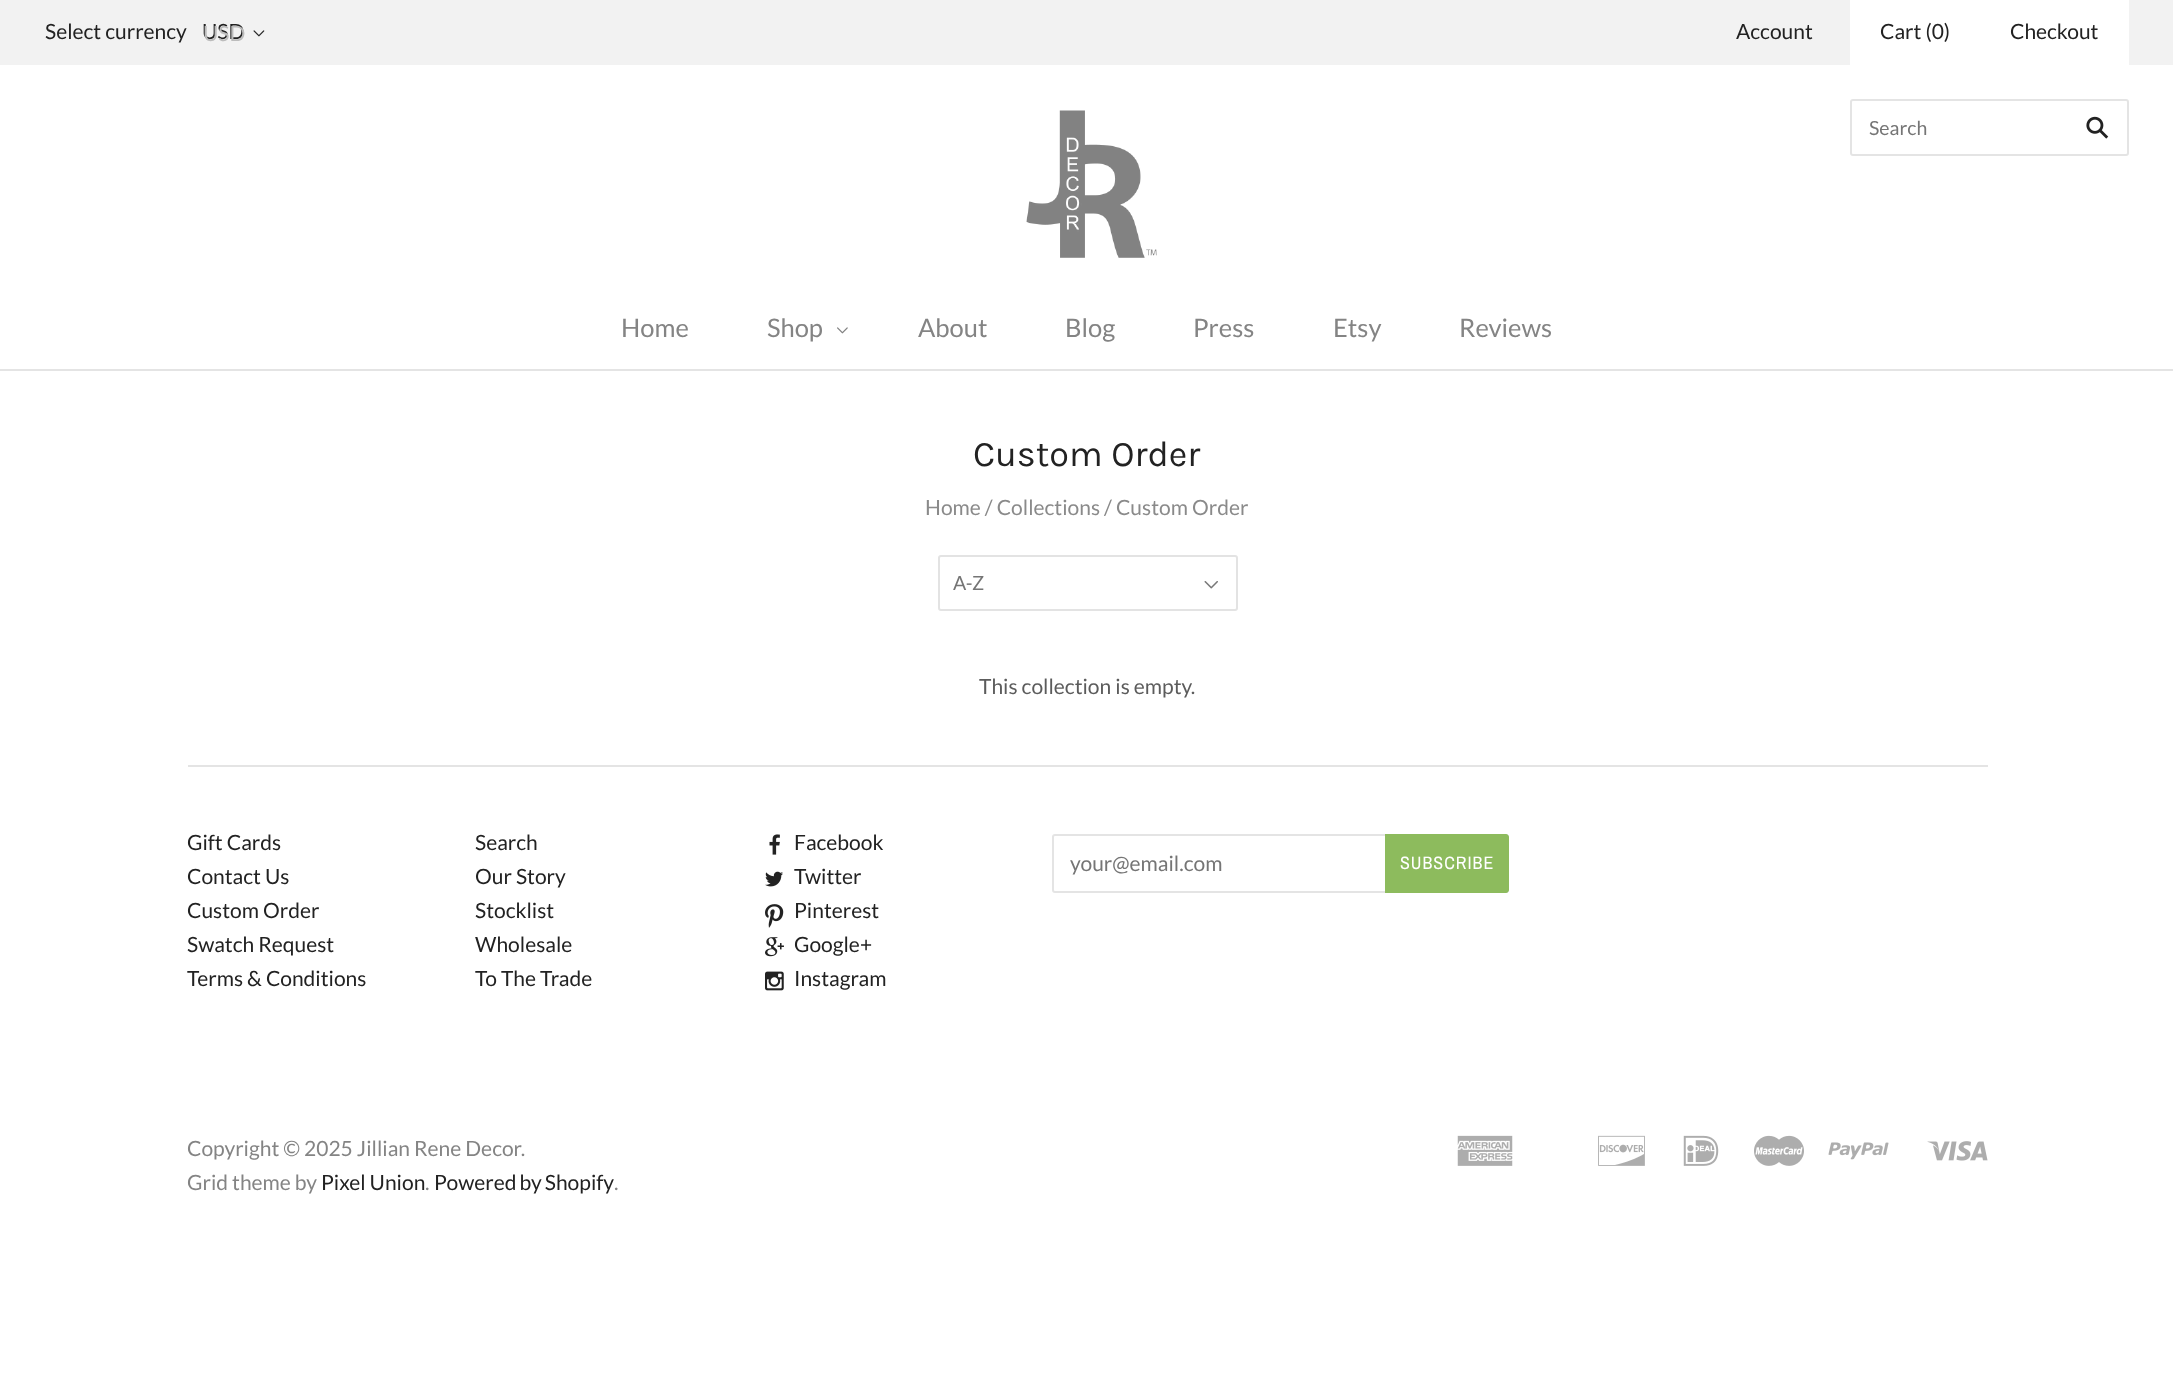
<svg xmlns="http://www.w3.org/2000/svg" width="2173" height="1397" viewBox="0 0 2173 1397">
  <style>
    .t1 { font: 21px Lato; fill: #222; }
    .t2 { font: 21px Lato; fill: #bcbcbc; }
    .t3 { font: 19.5px Lato; fill: #757575; }
    .t4 { font: 25.5px Lato; fill: #848484; }
    .t5 { font: 36px Karla; fill: #222; }
    .t6 { font: 21px Lato; fill: #8a8a8a; }
    .t7 { font: 21px Lato; fill: #5c5c5c; }
    .t8 { font: 21px Lato; fill: #757575; }
    .t9 { font: 18px Archivo Narrow; letter-spacing: 1px; fill: #fff; }
    .t10 { font: 21px Lato; fill: #848484; }
  </style>
  <rect width="100%" height="100%" fill="#fff"/>
  <rect x="0" y="0" width="2173" height="65" fill="#f2f2f2"/>
  <text x="45" y="39" class="t1">Select currency</text>
  <text x="202" y="39" class="t1">USD</text>
  <image x="253" y="30" width="12" height="7" href="images/1.png"/>
  <text x="203" y="41" class="t2">USD</text>
  <text x="1736" y="39" class="t1">Account</text>
  <rect x="1850" y="0" width="279" height="65" fill="#fff"/>
  <text x="1880" y="39" class="t1">Cart (0)</text>
  <text x="2010" y="39" class="t1">Checkout</text>
  <rect x="1851" y="100" width="277" height="55" rx="2" fill="none" stroke="#e4e4e4" stroke-width="2"/>
  <text x="1869" y="135" class="t3">Search</text>
  <image x="2086" y="116" width="23" height="23" href="images/2.png"/>
  <image x="1026" y="110" width="131" height="148" href="images/3.png"/>
  <rect x="0" y="369" width="2173" height="2" fill="#e4e4e4"/>
  <text x="621" y="337" class="t4">Home</text>
  <text x="767" y="337" class="t4">Shop</text>
  <image x="837" y="327" width="11" height="7" href="images/4.png"/>
  <text x="918" y="337" class="t4">About</text>
  <text x="1065" y="337" class="t4">Blog</text>
  <text x="1193" y="337" class="t4">Press</text>
  <text x="1333" y="337" class="t4">Etsy</text>
  <text x="1459" y="337" class="t4">Reviews</text>
  <text x="973" y="466" class="t5">Custom Order</text>
  <text x="925" y="515" class="t6">Home / Collections / Custom Order</text>
  <rect x="939" y="556" width="298" height="54" rx="2" fill="none" stroke="#e3e3e3" stroke-width="2"/>
  <text x="953" y="590" class="t3">A-Z</text>
  <image x="1204" y="581" width="14" height="8" href="images/5.png"/>
  <text x="979" y="694" class="t7">This collection is empty.</text>
  <rect x="188" y="765" width="1800" height="2" fill="#e4e4e4"/>
  <text x="187" y="850" class="t1">Gift Cards</text>
  <text x="187" y="884" class="t1">Contact Us</text>
  <text x="187" y="918" class="t1">Custom Order</text>
  <text x="187" y="952" class="t1">Swatch Request</text>
  <text x="187" y="986" class="t1">Terms &amp; Conditions</text>
  <text x="475" y="850" class="t1">Search</text>
  <text x="475" y="884" class="t1">Our Story</text>
  <text x="475" y="918" class="t1">Stocklist</text>
  <text x="475" y="952" class="t1">Wholesale</text>
  <text x="475" y="986" class="t1">To The Trade</text>
  <image x="769" y="834" width="11" height="21" href="images/6.png"/>
  <text x="794" y="850" class="t1">Facebook</text>
  <image x="765" y="871" width="18" height="16" href="images/7.png"/>
  <text x="794" y="884" class="t1">Twitter</text>
  <image x="765" y="904" width="19" height="24" href="images/8.png"/>
  <text x="794" y="918" class="t1">Pinterest</text>
  <image x="765" y="937" width="19" height="20" href="images/9.png"/>
  <text x="794" y="952" class="t1">Google+</text>
  <image x="765" y="971" width="19" height="20" href="images/10.png"/>
  <text x="794" y="986" class="t1">Instagram</text>
  <rect x="1053" y="835" width="455" height="57" rx="2" fill="none" stroke="#e4e4e4" stroke-width="2"/>
  <text x="1070" y="871" class="t8">your@email.com</text>
  <path d="M1385 834H1506C1507.5 834 1509 835.5 1509 837V890C1509 891.5 1507.5 893 1506 893H1385Z" fill="#8dbb5d"/>
  <text x="1400" y="869" class="t9">SUBSCRIBE</text>
  <text x="187" y="1156" class="t10">Copyright © 2025 Jillian Rene Decor.</text>
  <text x="187" y="1190" class="t10">Grid theme by</text>
  <text x="321" y="1190" class="t1">Pixel Union</text>
  <text x="425" y="1190" class="t10">.</text>
  <text x="434" y="1190" word-spacing="-1" class="t1">Powered by Shopify</text>
  <text x="614" y="1190" class="t10">.</text>
  <image x="1457" y="1135" width="56" height="31" href="images/11.png"/>
  <image x="1598" y="1135" width="47" height="31" href="images/12.png"/>
  <image x="1683" y="1135" width="36" height="31" href="images/13.png"/>
  <image x="1754" y="1135" width="50" height="31" href="images/14.png"/>
  <image x="1828" y="1142" width="61" height="18" href="images/15.png"/>
  <image x="1927" y="1141" width="61" height="20" href="images/16.png"/>
</svg>
